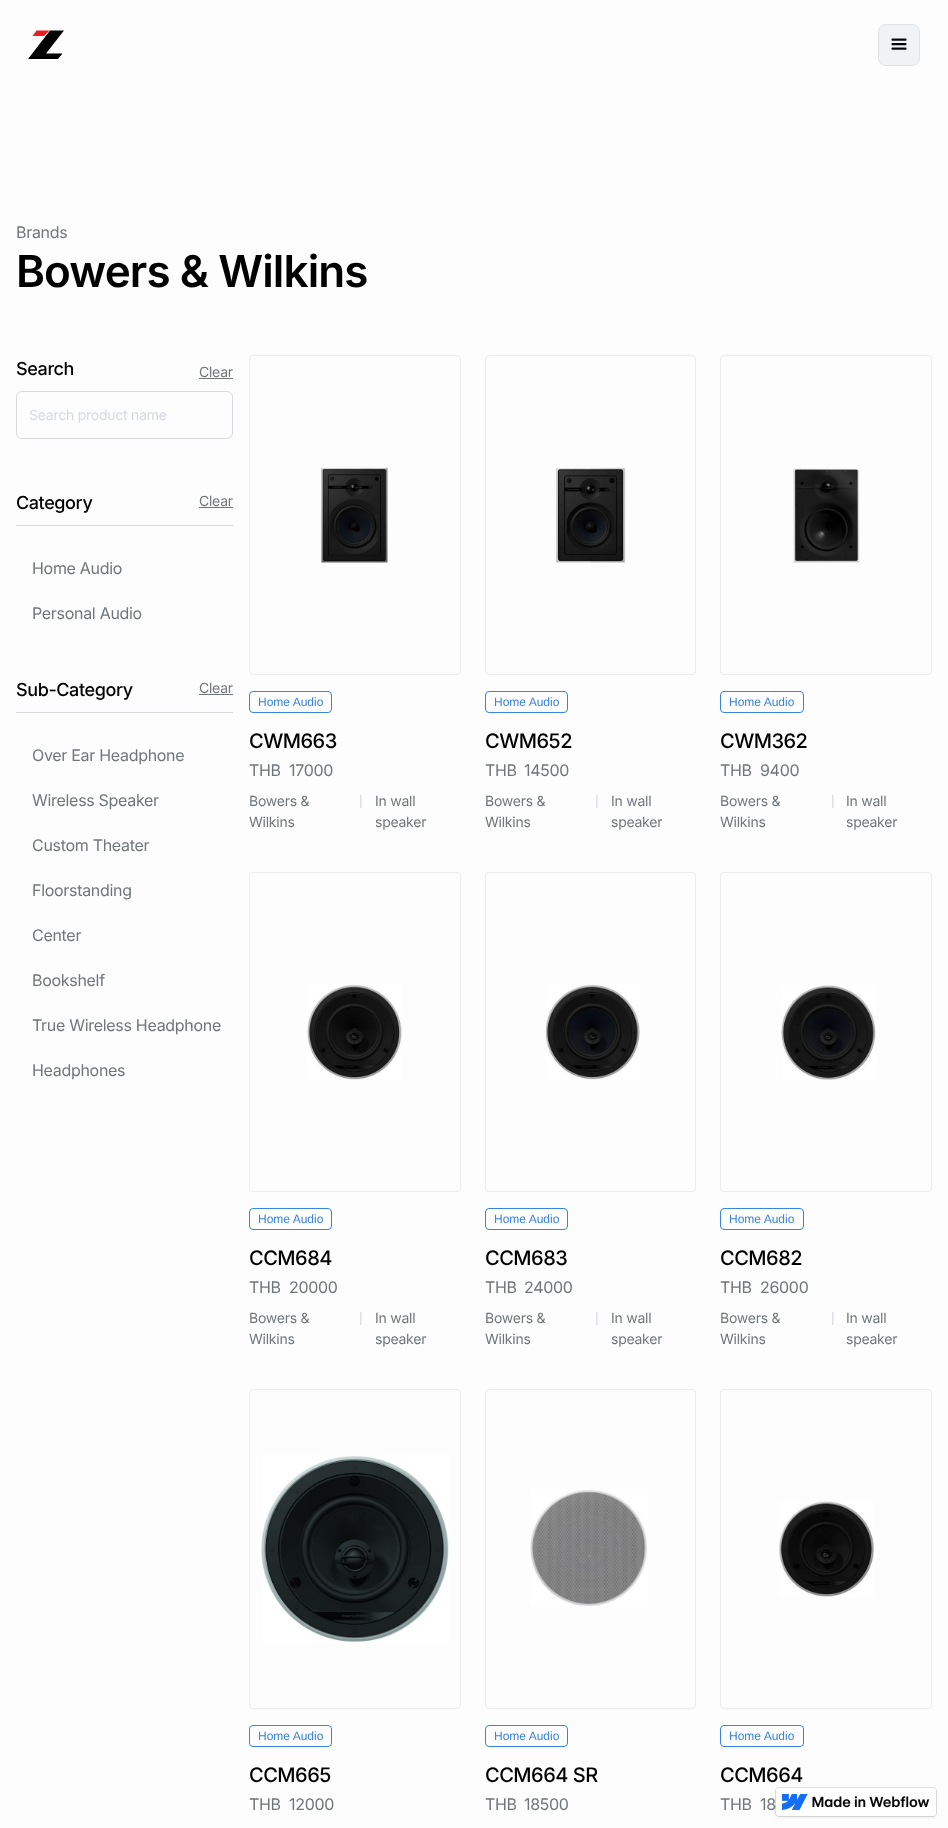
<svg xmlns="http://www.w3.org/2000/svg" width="948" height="1828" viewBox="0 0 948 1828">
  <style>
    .t1 { font: 16px Inter; letter-spacing: -0.3px; fill: #71767b; }
    .t2 { font: 600 44px Inter; letter-spacing: -0.9px; fill: #000; }
    .t3 { font: 500 18px Inter; letter-spacing: -0.4px; fill: #000; }
    .t4 { font: 14px Inter; letter-spacing: -0.25px; fill: #71767b; }
    .t5 { font: 14px Inter; letter-spacing: -0.25px; fill: #d6d9e2; }
    .t6 { font: 12px Liberation Sans; fill: #3884de; }
    .t7 { font: 500 20px Inter; letter-spacing: -0.5px; fill: #000; }
    .t8 { font: 14px Liberation Sans; fill: #d6d9e2; }
  </style>
  <rect width="100%" height="100%" fill="#fdfdfd"/>
  <path d="M36.5 30.5L32.5 36H44L49.5 30.5Z" fill="#ec1e24"/>
  <path d="M46 53.5L64 30.5H50L28 59H58L62.5 53.5Z" fill="#020202"/>
  <rect x="878.5" y="24.5" width="41" height="41" rx="7.5" fill="#f1f2f4" stroke="#e0e3e6"/>
  <image x="891" y="38" width="16" height="12" href="images/1.png"/>
  <text x="16" y="238" class="t1">Brands</text>
  <text x="16" y="287" class="t2">Bowers &amp; Wilkins</text>
  <text x="16" y="375" class="t3">Search</text>
  <text x="199" y="377" class="t4">Clear</text>
  <rect x="199" y="378" width="34" height="1" fill="#71767b"/>
  <rect x="16.5" y="391.5" width="216" height="47" rx="5.5" fill="none" stroke="#d6d9e2"/>
  <text x="29" y="420" class="t5">Search product name</text>
  <rect x="16" y="525" width="217" height="1" fill="#d6d9e2"/>
  <text x="16" y="509" class="t3">Category</text>
  <text x="199" y="506" class="t4">Clear</text>
  <rect x="199" y="507" width="34" height="1" fill="#71767b"/>
  <text x="32" y="574" class="t1">Home Audio</text>
  <text x="32" y="619" class="t1">Personal Audio</text>
  <rect x="16" y="712" width="217" height="1" fill="#d6d9e2"/>
  <text x="16" y="696" class="t3">Sub-Category</text>
  <text x="199" y="693" class="t4">Clear</text>
  <rect x="199" y="694" width="34" height="1" fill="#71767b"/>
  <text x="32" y="761" class="t1">Over Ear Headphone</text>
  <text x="32" y="806" class="t1">Wireless Speaker</text>
  <text x="32" y="851" class="t1">Custom Theater</text>
  <text x="32" y="896" class="t1">Floorstanding</text>
  <text x="32" y="941" class="t1">Center</text>
  <text x="32" y="986" class="t1">Bookshelf</text>
  <text x="32" y="1031" class="t1">True Wireless Headphone</text>
  <text x="32" y="1076" class="t1">Headphones</text>
  <rect x="249.5" y="355.5" width="211" height="319" rx="3.5" fill="none" stroke="#ececee"/>
  <image x="320" y="467" width="68" height="96" href="images/2.png"/>
  <rect x="249.5" y="691.5" width="82" height="21" rx="3.5" fill="none" stroke="#3884de"/>
  <text x="258" y="706" class="t6">Home Audio</text>
  <text x="249" y="748" class="t7">CWM663</text>
  <text x="249" y="776" class="t1">THB</text>
  <text x="289" y="776" class="t1">17000</text>
  <text x="249" y="806" class="t4">Bowers &amp;</text>
  <text x="249" y="827" class="t4">Wilkins</text>
  <text x="359" y="805" class="t8">|</text>
  <text x="375" y="806" class="t4">In wall</text>
  <text x="375" y="827" class="t4">speaker</text>
  <rect x="485.5" y="355.5" width="210" height="319" rx="3.5" fill="none" stroke="#ececee"/>
  <image x="555" y="467" width="71" height="96" href="images/3.png"/>
  <rect x="485.5" y="691.5" width="82" height="21" rx="3.5" fill="none" stroke="#3884de"/>
  <text x="494" y="706" class="t6">Home Audio</text>
  <text x="485" y="748" class="t7">CWM652</text>
  <text x="485" y="776" class="t1">THB</text>
  <text x="524" y="776" class="t1">14500</text>
  <text x="485" y="806" class="t4">Bowers &amp;</text>
  <text x="485" y="827" class="t4">Wilkins</text>
  <text x="595" y="805" class="t8">|</text>
  <text x="611" y="806" class="t4">In wall</text>
  <text x="611" y="827" class="t4">speaker</text>
  <rect x="720.5" y="355.5" width="211" height="319" rx="3.5" fill="none" stroke="#ececee"/>
  <image x="793" y="468" width="67" height="95" href="images/4.png"/>
  <rect x="720.5" y="691.5" width="83" height="21" rx="3.5" fill="none" stroke="#3884de"/>
  <text x="729" y="706" class="t6">Home Audio</text>
  <text x="720" y="748" class="t7">CWM362</text>
  <text x="720" y="776" class="t1">THB</text>
  <text x="760" y="776" class="t1">9400</text>
  <text x="720" y="806" class="t4">Bowers &amp;</text>
  <text x="720" y="827" class="t4">Wilkins</text>
  <text x="831" y="805" class="t8">|</text>
  <text x="846" y="806" class="t4">In wall</text>
  <text x="846" y="827" class="t4">speaker</text>
  <rect x="249.5" y="872.5" width="211" height="319" rx="3.5" fill="none" stroke="#ececee"/>
  <image x="306" y="984" width="96" height="96" href="images/5.png"/>
  <rect x="249.5" y="1208.5" width="82" height="21" rx="3.5" fill="none" stroke="#3884de"/>
  <text x="258" y="1223" class="t6">Home Audio</text>
  <text x="249" y="1265" class="t7">CCM684</text>
  <text x="249" y="1293" class="t1">THB</text>
  <text x="289" y="1293" class="t1">20000</text>
  <text x="249" y="1323" class="t4">Bowers &amp;</text>
  <text x="249" y="1344" class="t4">Wilkins</text>
  <text x="359" y="1322" class="t8">|</text>
  <text x="375" y="1323" class="t4">In wall</text>
  <text x="375" y="1344" class="t4">speaker</text>
  <rect x="485.5" y="872.5" width="210" height="319" rx="3.5" fill="none" stroke="#ececee"/>
  <image x="545" y="984" width="95" height="96" href="images/6.png"/>
  <rect x="485.5" y="1208.5" width="82" height="21" rx="3.5" fill="none" stroke="#3884de"/>
  <text x="494" y="1223" class="t6">Home Audio</text>
  <text x="485" y="1265" class="t7">CCM683</text>
  <text x="485" y="1293" class="t1">THB</text>
  <text x="524" y="1293" class="t1">24000</text>
  <text x="485" y="1323" class="t4">Bowers &amp;</text>
  <text x="485" y="1344" class="t4">Wilkins</text>
  <text x="595" y="1322" class="t8">|</text>
  <text x="611" y="1323" class="t4">In wall</text>
  <text x="611" y="1344" class="t4">speaker</text>
  <rect x="720.5" y="872.5" width="211" height="319" rx="3.5" fill="none" stroke="#ececee"/>
  <image x="781" y="985" width="95" height="95" href="images/7.png"/>
  <rect x="720.5" y="1208.5" width="83" height="21" rx="3.5" fill="none" stroke="#3884de"/>
  <text x="729" y="1223" class="t6">Home Audio</text>
  <text x="720" y="1265" class="t7">CCM682</text>
  <text x="720" y="1293" class="t1">THB</text>
  <text x="760" y="1293" class="t1">26000</text>
  <text x="720" y="1323" class="t4">Bowers &amp;</text>
  <text x="720" y="1344" class="t4">Wilkins</text>
  <text x="831" y="1322" class="t8">|</text>
  <text x="846" y="1323" class="t4">In wall</text>
  <text x="846" y="1344" class="t4">speaker</text>
  <rect x="249.5" y="1389.5" width="211" height="319" rx="3.5" fill="none" stroke="#ececee"/>
  <image x="261" y="1455" width="188" height="188" href="images/8.png"/>
  <rect x="249.5" y="1725.5" width="82" height="21" rx="3.5" fill="none" stroke="#3884de"/>
  <text x="258" y="1740" class="t6">Home Audio</text>
  <text x="249" y="1782" class="t7">CCM665</text>
  <text x="249" y="1810" class="t1">THB</text>
  <text x="289" y="1810" class="t1">12000</text>
  <rect x="485.5" y="1389.5" width="210" height="319" rx="3.5" fill="none" stroke="#ececee"/>
  <image x="530" y="1489" width="118" height="117" href="images/9.png"/>
  <rect x="485.5" y="1725.5" width="82" height="21" rx="3.5" fill="none" stroke="#3884de"/>
  <text x="494" y="1740" class="t6">Home Audio</text>
  <text x="485" y="1782" class="t7">CCM664 SR</text>
  <text x="485" y="1810" class="t1">THB</text>
  <text x="524" y="1810" class="t1">18500</text>
  <rect x="720.5" y="1389.5" width="211" height="319" rx="3.5" fill="none" stroke="#ececee"/>
  <image x="778" y="1501" width="96" height="96" href="images/10.png"/>
  <rect x="720.5" y="1725.5" width="83" height="21" rx="3.5" fill="none" stroke="#3884de"/>
  <text x="729" y="1740" class="t6">Home Audio</text>
  <text x="720" y="1782" class="t7">CCM664</text>
  <text x="720" y="1810" class="t1">THB</text>
  <text x="760" y="1810" class="t1">18</text>
  <rect x="776" y="1789" width="160" height="28" rx="3" fill="#0000001a" filter="blur(1.5px)"/>
  <rect x="775.5" y="1787.5" width="161" height="29" rx="3.5" fill="none" stroke="#0000001a"/>
  <rect x="776" y="1788" width="160" height="28" rx="3" fill="#fff"/>
  <image x="782" y="1794" width="26" height="16" href="images/11.png"/>
  <image x="812" y="1796" width="118" height="12" href="images/12.png"/>
</svg>
